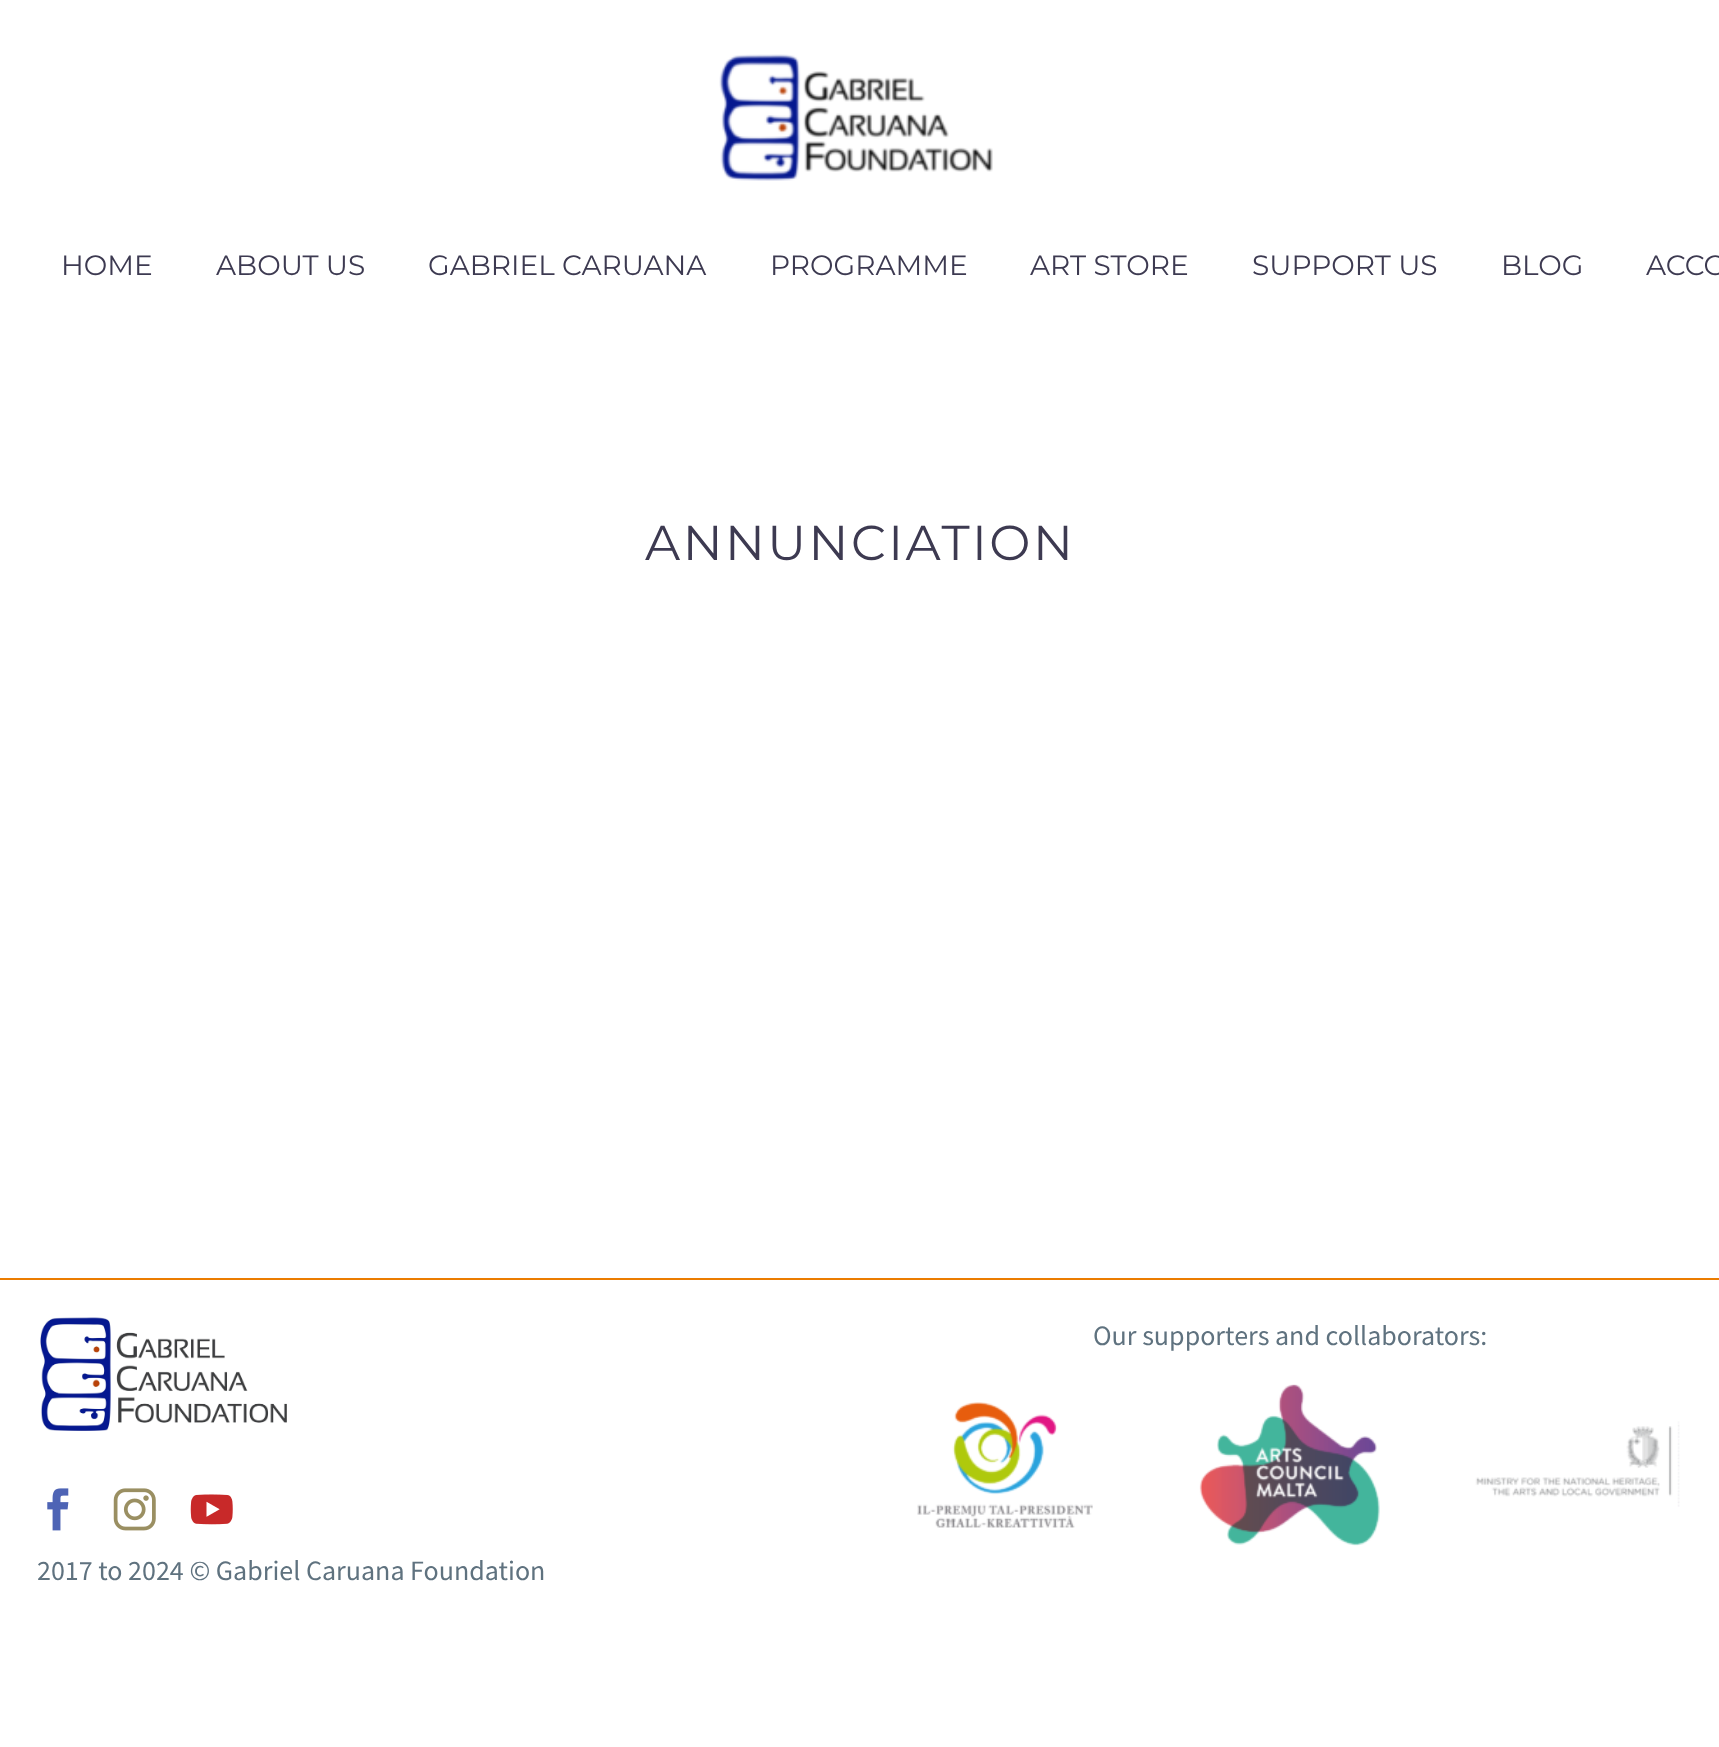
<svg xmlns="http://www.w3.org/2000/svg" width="1719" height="1747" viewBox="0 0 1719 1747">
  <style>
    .t1 { font: 28px Montserrat; fill: #3d3a51; }
    .t2 { font: 49px Montserrat; letter-spacing: 2.5px; fill: #3d3a51; }
    .t3 { font: 28px Source Sans Pro; fill: #5f727f; }
  </style>
  <rect width="100%" height="100%" fill="#fff"/>
  <image x="719" y="54" width="274" height="127" href="images/1.png"/>
  <text x="61" y="275" class="t1">HOME</text>
  <text x="216" y="275" class="t1">ABOUT US</text>
  <text x="428" y="275" class="t1">GABRIEL CARUANA</text>
  <text x="770" y="275" class="t1">PROGRAMME</text>
  <text x="1030" y="275" class="t1">ART STORE</text>
  <text x="1252" y="275" class="t1">SUPPORT US</text>
  <text x="1501" y="275" class="t1">BLOG</text>
  <text x="1646" y="275" class="t1">ACCO</text>
  <text x="645" y="560" class="t2">ANNUNCIATION</text>
  <rect x="0" y="1278" width="1719" height="2" fill="#eb7c00"/>
  <text x="1093" y="1345" class="t3">Our supporters and collaborators:</text>
  <image x="917" y="1402" width="176" height="126" href="images/2.png"/>
  <image x="1199" y="1384" width="181" height="162" href="images/3.png"/>
  <image x="1475" y="1421" width="205" height="86" href="images/4.png"/>
  <image x="40" y="1317" width="247" height="114" href="images/5.png"/>
  <image x="47" y="1488" width="22" height="43" href="images/6.png"/>
  <image x="113" y="1488" width="43" height="43" href="images/7.png"/>
  <image x="190" y="1494" width="43" height="31" href="images/8.png"/>
  <text x="37" y="1580" class="t3">2017 to 2024 © Gabriel Caruana Foundation</text>
</svg>
